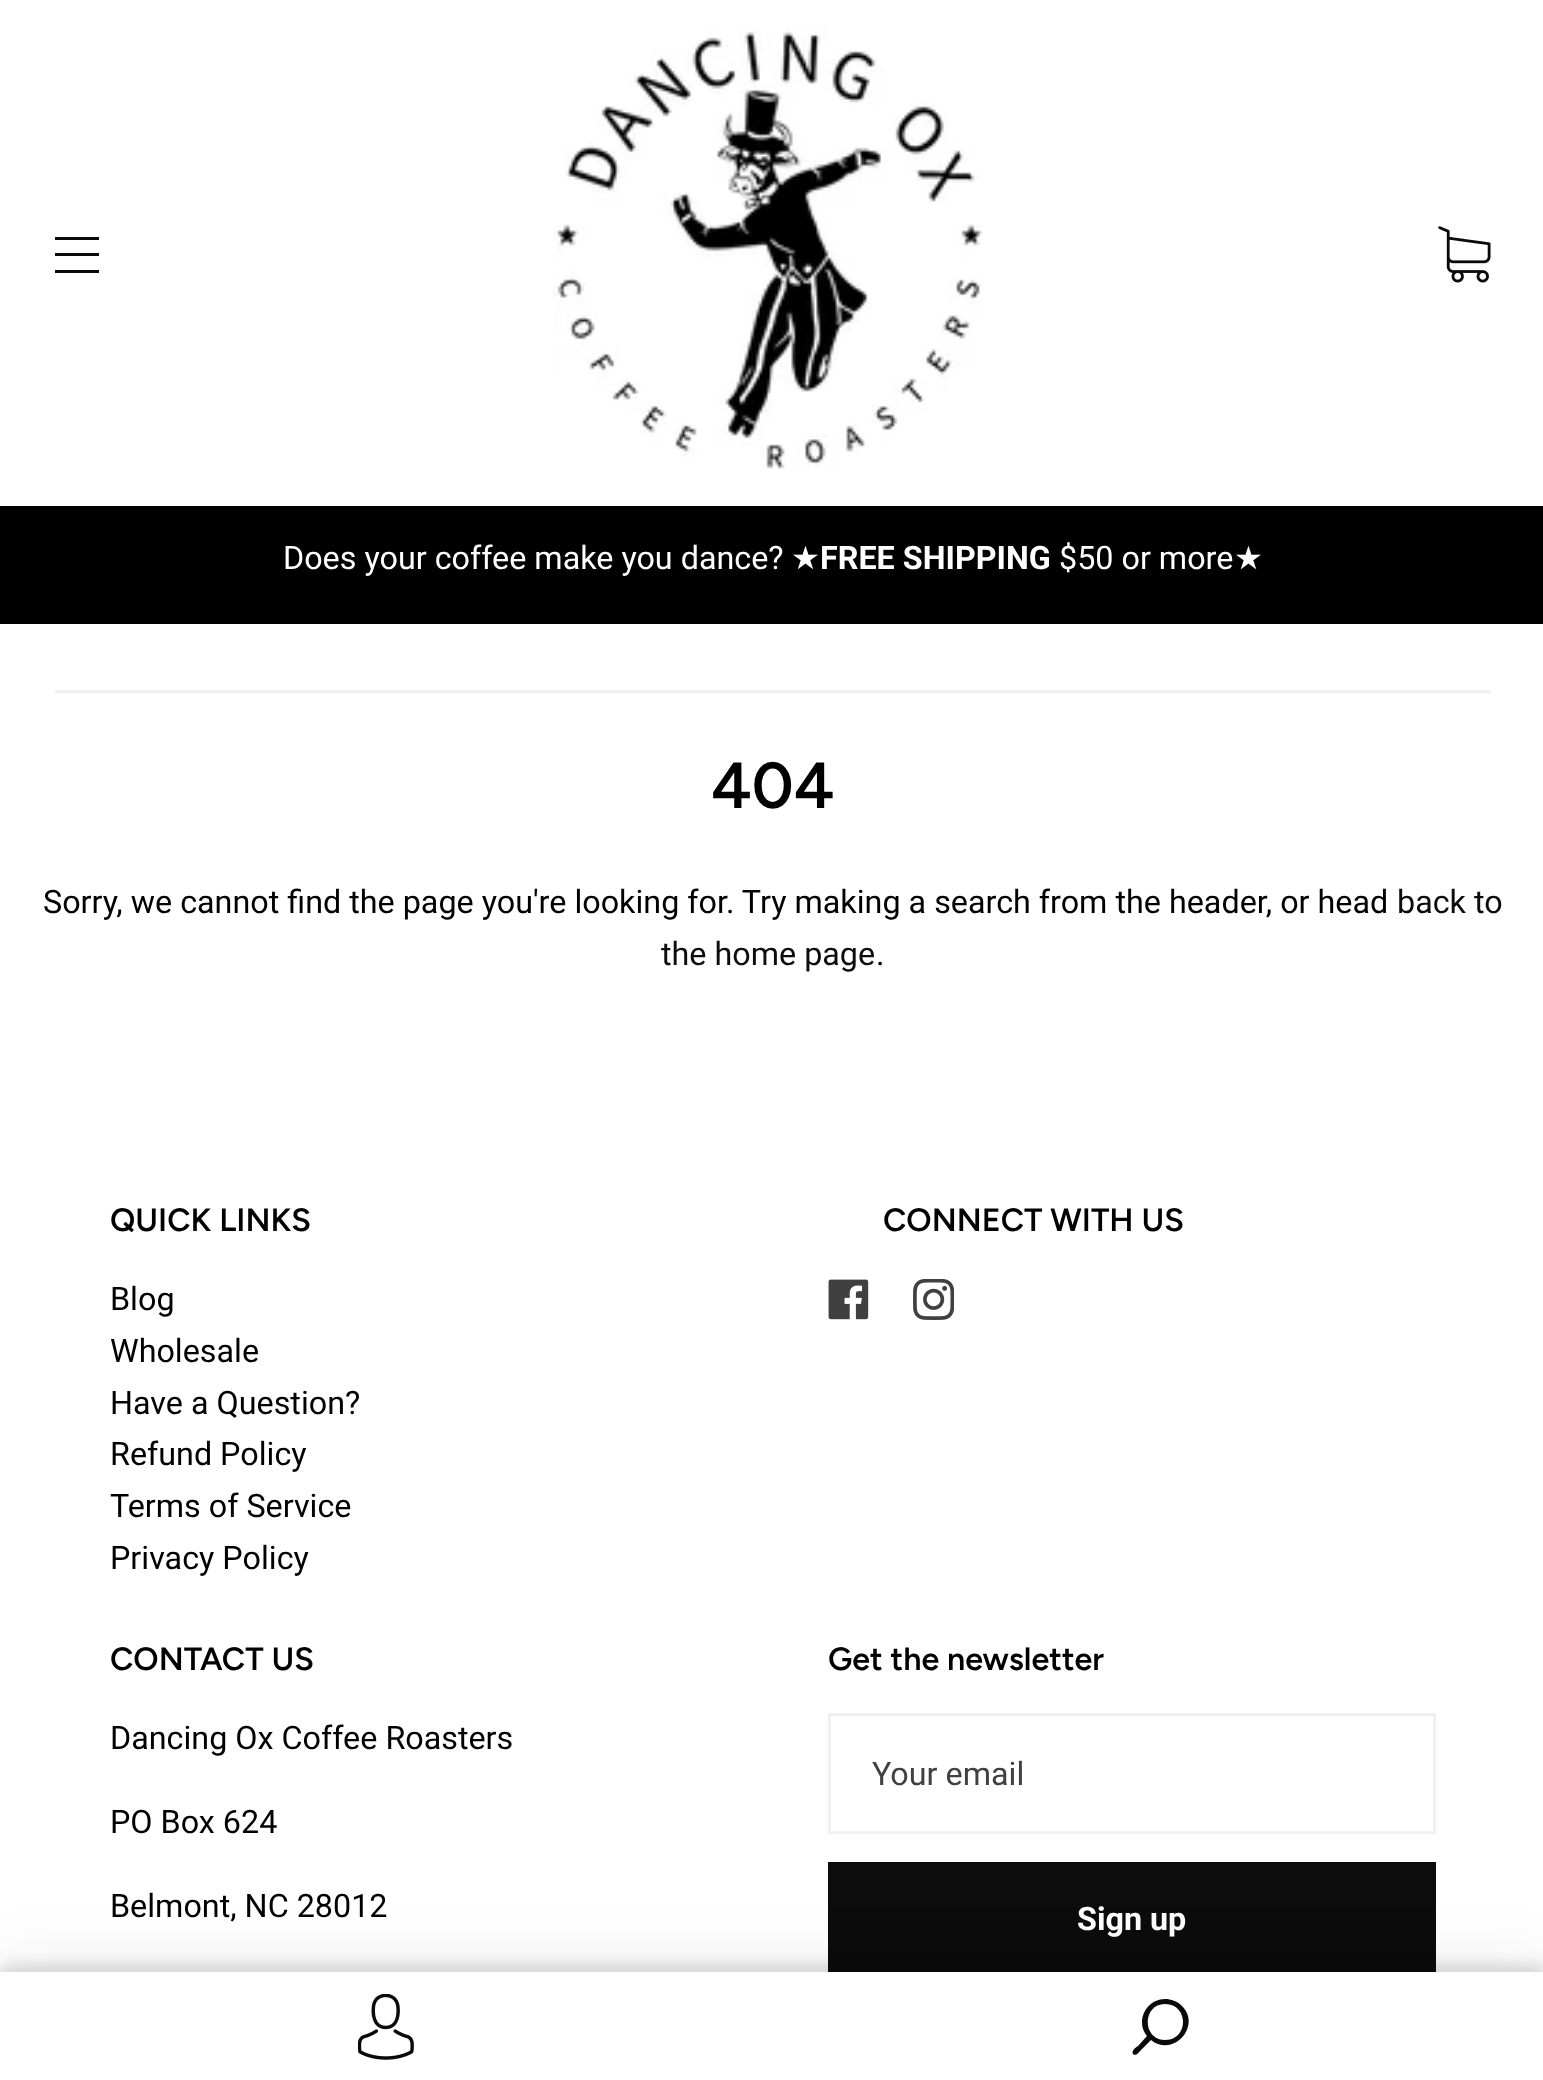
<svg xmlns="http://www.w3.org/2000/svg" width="1543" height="2080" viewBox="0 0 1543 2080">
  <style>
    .t1 { font: 32.3px Roboto; fill: #fff; }
    .t2 { font: 32.3px DejaVu Sans; fill: #fff; }
    .t3 { font: bold 32.3px Roboto; fill: #fff; }
    .t4 { font: 600 65px Figtree; fill: #000; }
    .t5 { font: 32.3px Roboto; fill: #000; }
    .t6 { font: 32.3px Roboto; fill: #0d0c0c; }
    .t7 { font: 600 32.3px Figtree; fill: #000; }
    .t8 { font: 32.3px Roboto; fill: #404040; }
  </style>
  <rect width="100%" height="100%" fill="#fff"/>
  <rect x="55" y="237" width="44" height="3" fill="#0a0a0a"/>
  <rect x="55" y="253" width="44" height="3" fill="#0a0a0a"/>
  <rect x="55" y="270" width="44" height="3" fill="#0a0a0a"/>
  <image x="553" y="28" width="430" height="441" href="images/1.png"/>
  <image x="1438" y="226" width="53" height="57" href="images/2.png"/>
  <rect x="0" y="506" width="1543" height="118" fill="#000"/>
  <text x="283" y="569" class="t1">Does your coffee make you dance?</text>
  <text x="791" y="569" class="t2">★</text>
  <text x="820" y="569" class="t3">FREE SHIPPING</text>
  <text x="1059" y="569" class="t1">$50 or more</text>
  <text x="1234" y="569" class="t2">★</text>
  <rect x="55" y="690" width="1436" height="3" fill="#f1f1f1"/>
  <text x="711" y="808" class="t4">404</text>
  <text x="43" y="913" class="t5">Sorry, we cannot find the page you're looking for. Try making a search from the header, or head</text>
  <text x="1397" y="913" class="t6">back to</text>
  <text x="661" y="965" class="t6">the home page</text>
  <text x="876" y="965" class="t5">.</text>
  <text x="110" y="1231" class="t7">QUICK LINKS</text>
  <text x="110" y="1310" class="t5">Blog</text>
  <text x="110" y="1362" class="t5">Wholesale</text>
  <text x="110" y="1414" class="t5">Have a Question?</text>
  <text x="110" y="1465" class="t5">Refund Policy</text>
  <text x="110" y="1517" class="t5">Terms of Service</text>
  <text x="110" y="1569" class="t5">Privacy Policy</text>
  <text x="883" y="1231" class="t7">CONNECT WITH US</text>
  <image x="828" y="1279" width="41" height="41" href="images/3.png"/>
  <image x="913" y="1279" width="41" height="41" href="images/4.png"/>
  <text x="110" y="1670" class="t7">CONTACT US</text>
  <text x="110" y="1749" class="t5">Dancing Ox Coffee Roasters</text>
  <text x="110" y="1833" class="t5">PO Box 624</text>
  <text x="110" y="1917" class="t5">Belmont, NC 28012</text>
  <text x="828" y="1670" class="t7">Get the newsletter</text>
  <rect x="829.5" y="1714.5" width="605" height="118" fill="none" stroke="#f1f1f1" stroke-width="3"/>
  <text x="872" y="1785" class="t8">Your email</text>
  <rect x="828" y="1862" width="608" height="110" fill="#0d0c0c"/>
  <text x="1077" y="1930" class="t3">Sign up</text>
  <rect x="0" y="1955" width="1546" height="110" fill="#0000000f" filter="blur(27.5px)"/>
  <rect x="0" y="1964" width="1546" height="110" fill="#0000001f" filter="blur(7px)"/>
  <rect x="0" y="1972" width="1543" height="108" fill="#fff"/>
  <image x="358" y="1994" width="56" height="66" href="images/5.png"/>
  <path d="M1165 1999C1146 1999 1135 2022 1147 2036L1138 2046C1136 2047 1131 2051 1133 2054C1136 2057 1140 2051 1142 2049L1151 2040C1173 2058 1202 2026 1182 2006C1177 2001 1171 1999 1165 1999ZM1165 2040C1142 2040 1142 2004 1165 2004C1189 2004 1189 2040 1165 2040Z" fill="#0a0a0a"/>
</svg>
